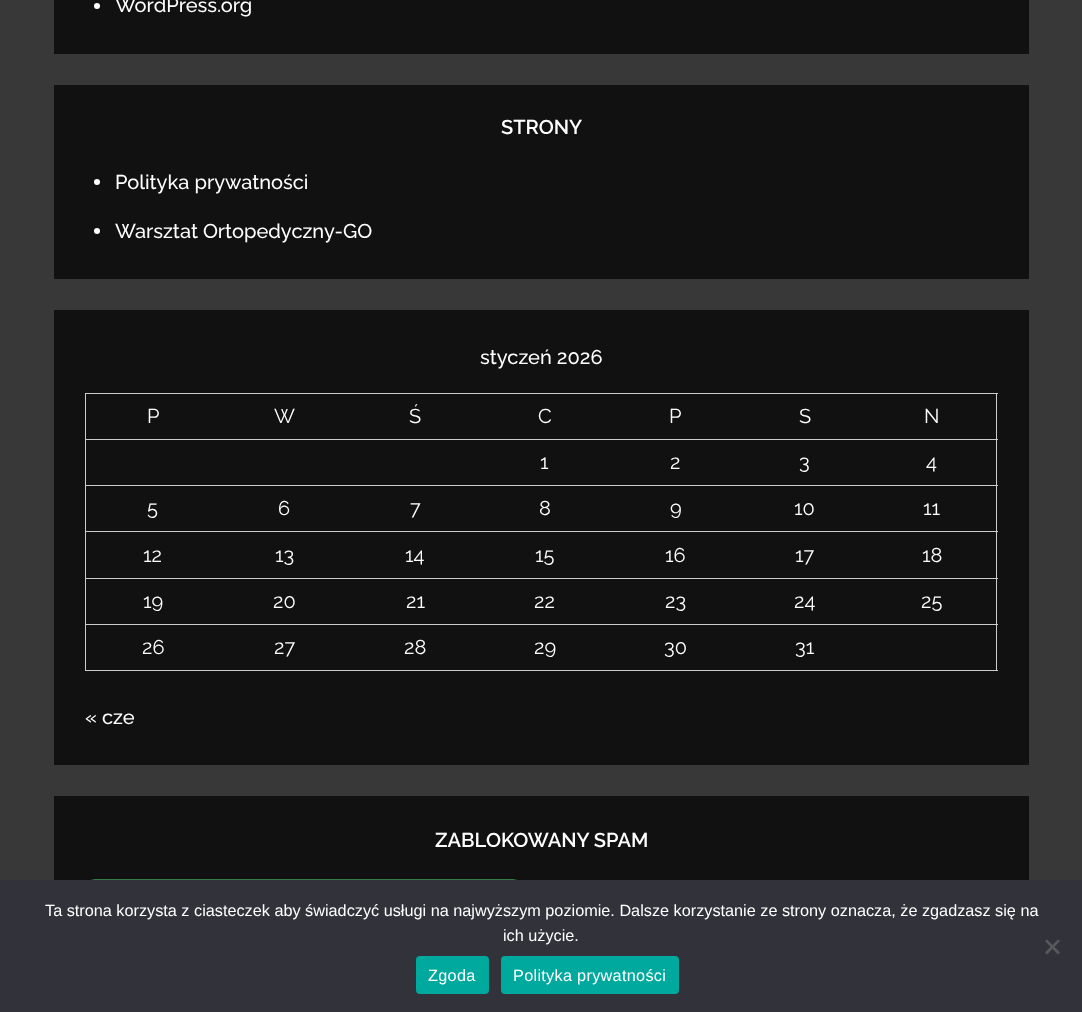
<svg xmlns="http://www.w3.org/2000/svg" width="1082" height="1012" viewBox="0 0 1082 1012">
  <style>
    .t1 { font: 500 20px Raleway; fill: #fff; }
    .t2 { font: 600 20px Raleway; fill: #fff; }
    .t3 { font: 20px Raleway; fill: #fff; }
    .t4 { font: 16.25px Liberation Sans; fill: #fff; }
    .t5 { font: 16.25px Liberation Sans; letter-spacing: 0.3px; fill: #fff; }
  </style>
  <rect width="100%" height="100%" fill="#383838"/>
  <rect x="54" y="0" width="975" height="54" fill="#111"/>
  <circle cx="97" cy="6" r="3" fill="#fff"/>
  <text x="115" y="12" class="t1">WordPress.org</text>
  <rect x="54" y="85" width="975" height="194" fill="#111"/>
  <text x="501" y="134" class="t2">STRONY</text>
  <circle cx="97" cy="182" r="3" fill="#fff"/>
  <text x="115" y="189" class="t1">Polityka prywatności</text>
  <circle cx="97" cy="231" r="3" fill="#fff"/>
  <text x="115" y="238" class="t1">Warsztat Ortopedyczny-GO</text>
  <rect x="54" y="310" width="975" height="455" fill="#111"/>
  <text x="480" y="364" class="t1">styczeń 2026</text>
  <rect x="85" y="393" width="913" height="1" fill="#ccc"/>
  <rect x="85" y="439" width="913" height="1" fill="#ccc"/>
  <rect x="85" y="485" width="913" height="1" fill="#ccc"/>
  <rect x="85" y="531" width="913" height="1" fill="#ccc"/>
  <rect x="85" y="578" width="913" height="1" fill="#ccc"/>
  <rect x="85" y="624" width="913" height="1" fill="#ccc"/>
  <rect x="996" y="624" width="1" height="47" fill="#ccc"/>
  <rect x="996" y="578" width="1" height="47" fill="#ccc"/>
  <rect x="996" y="531" width="1" height="48" fill="#ccc"/>
  <rect x="996" y="485" width="1" height="48" fill="#ccc"/>
  <rect x="996" y="439" width="1" height="47" fill="#ccc"/>
  <rect x="996" y="393" width="1" height="47" fill="#ccc"/>
  <rect x="85" y="670" width="913" height="1" fill="#ccc"/>
  <rect x="85" y="624" width="1" height="47" fill="#ccc"/>
  <rect x="85" y="578" width="1" height="47" fill="#ccc"/>
  <rect x="85" y="531" width="1" height="48" fill="#ccc"/>
  <rect x="85" y="485" width="1" height="48" fill="#ccc"/>
  <rect x="85" y="439" width="1" height="47" fill="#ccc"/>
  <rect x="85" y="393" width="1" height="47" fill="#ccc"/>
  <text x="147" y="423" class="t3">P</text>
  <text x="274" y="423" class="t3">W</text>
  <text x="409" y="423" class="t3">Ś</text>
  <text x="538" y="423" class="t3">C</text>
  <text x="669" y="423" class="t3">P</text>
  <text x="799" y="423" class="t3">S</text>
  <text x="924" y="423" class="t3">N</text>
  <text x="540" y="469" class="t3">1</text>
  <text x="670" y="469" class="t3">2</text>
  <text x="799" y="469" class="t3">3</text>
  <text x="926" y="469" class="t3">4</text>
  <text x="147" y="515" class="t3">5</text>
  <text x="278" y="515" class="t3">6</text>
  <text x="410" y="515" class="t3">7</text>
  <text x="539" y="515" class="t3">8</text>
  <text x="670" y="515" class="t3">9</text>
  <text x="794" y="515" class="t3">10</text>
  <text x="923" y="515" class="t3">11</text>
  <text x="143" y="562" class="t3">12</text>
  <text x="275" y="562" class="t3">13</text>
  <text x="405" y="562" class="t3">14</text>
  <text x="535" y="562" class="t3">15</text>
  <text x="665" y="562" class="t3">16</text>
  <text x="795" y="562" class="t3">17</text>
  <text x="922" y="562" class="t3">18</text>
  <text x="143" y="608" class="t3">19</text>
  <text x="273" y="608" class="t3">20</text>
  <text x="406" y="608" class="t3">21</text>
  <text x="534" y="608" class="t3">22</text>
  <text x="665" y="608" class="t3">23</text>
  <text x="794" y="608" class="t3">24</text>
  <text x="921" y="608" class="t3">25</text>
  <text x="142" y="654" class="t3">26</text>
  <text x="274" y="654" class="t3">27</text>
  <text x="404" y="654" class="t3">28</text>
  <text x="534" y="654" class="t3">29</text>
  <text x="664" y="654" class="t3">30</text>
  <text x="795" y="654" class="t3">31</text>
  <text x="85" y="724" class="t1">« cze</text>
  <rect x="54" y="796" width="975" height="84" fill="#111"/>
  <text x="435" y="847" class="t2">ZABLOKOWANY SPAM</text>
  <rect x="85" y="879" width="438" height="105" rx="10" fill="#357b49"/>
  <rect x="0" y="880" width="1082" height="132" fill="#32323a"/>
  <text x="45" y="916" class="t4">Ta strona korzysta z ciasteczek aby świadczyć usługi na najwyższym poziomie. Dalsze korzystanie ze strony oznacza, że zgadzasz się na</text>
  <text x="503" y="941" class="t4">ich użycie.</text>
  <path d="M1058 939.5L1060 941L1047 954.5L1045 952.5Z" fill="#59595d"/>
  <path d="M1045 941L1047 939.5L1060 952.5L1058 954.5Z" fill="#59595d"/>
  <rect x="416" y="956" width="73" height="38" rx="4" fill="#00a99d"/>
  <text x="428" y="981" class="t5">Zgoda</text>
  <rect x="501" y="956" width="178" height="38" rx="4" fill="#00a99d"/>
  <text x="513" y="981" class="t5">Polityka prywatności</text>
</svg>
